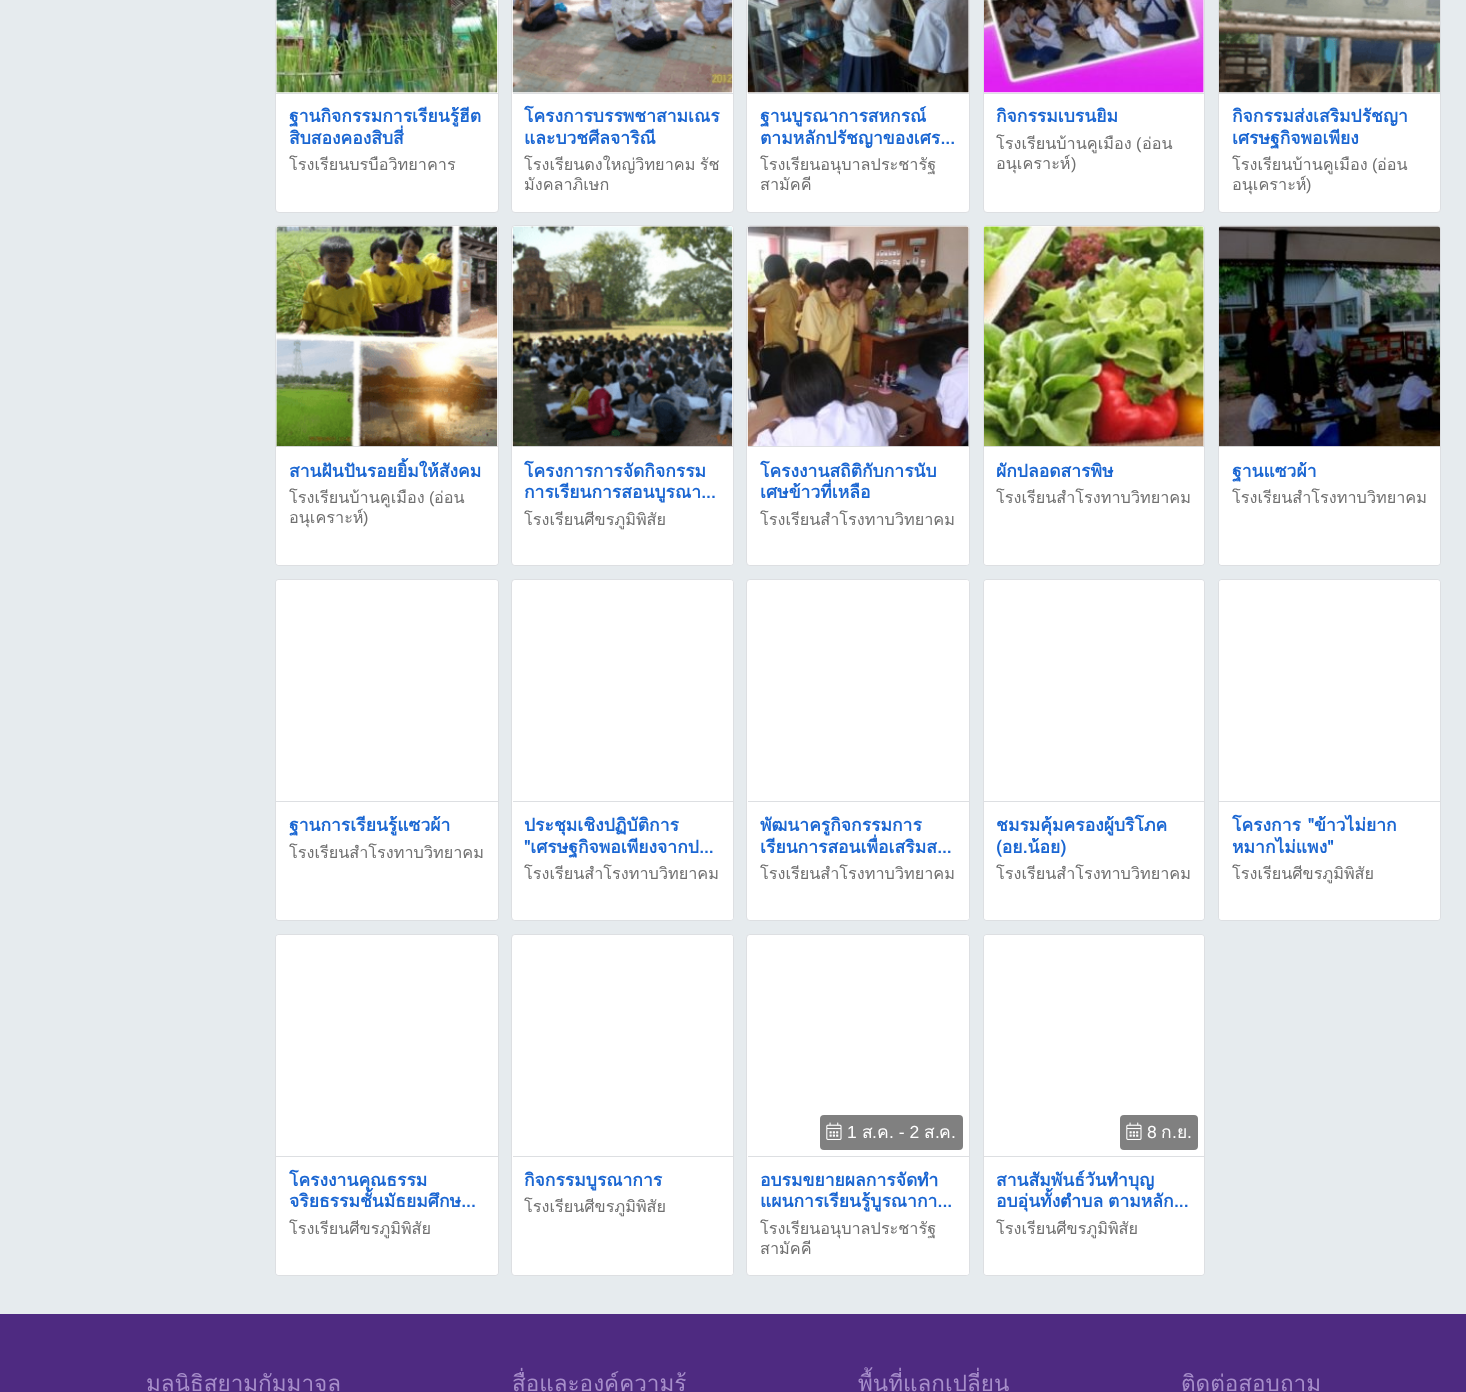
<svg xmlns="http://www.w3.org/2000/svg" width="1466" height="1392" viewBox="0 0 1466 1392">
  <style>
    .t1 { font: bold 17.5px Loma; fill: #1a66d2; }
    .t2 { font: 16.25px Loma; fill: #6f6f6f; }
    .t3 { font: 16.25px Liberation Sans; fill: #6f6f6f; }
    .t4 { font: 17.5px Liberation Sans; fill: #fff; }
    .t5 { font: 17.5px Loma; fill: #fff; }
    .t6 { font: 22.5px Loma; fill: #a78eca; }
  </style>
  <rect width="100%" height="100%" fill="#e6ebee"/>
  <rect x="275.5" y="-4.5" width="223" height="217" rx="3.5" fill="#fff" stroke="#dddfe2"/>
  <image x="276" y="0" width="222" height="93" href="images/1.png"/>
  <rect x="276" y="93" width="222" height="1" fill="#dddfe2"/>
  <text x="289" y="122" class="t1">ฐานกิจกรรมการเรียนรู้ฮีต</text>
  <text x="289" y="144" class="t1">สิบสองคองสิบสี่</text>
  <text x="289" y="170" class="t2">โรงเรียนบรบือวิทยาคาร</text>
  <rect x="511.5" y="-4.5" width="222" height="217" rx="3.5" fill="#fff" stroke="#dddfe2"/>
  <image x="512" y="0" width="221" height="93" href="images/2.png"/>
  <rect x="513" y="93" width="220" height="1" fill="#dddfe2"/>
  <text x="524" y="122" class="t1">โครงการบรรพชาสามเณร</text>
  <text x="524" y="144" class="t1">และบวชศีลจาริณี</text>
  <text x="524" y="170" word-spacing="-1" class="t2">โรงเรียนดงใหญ่วิทยาคม รัช</text>
  <text x="524" y="190" class="t2">มังคลาภิเษก</text>
  <rect x="746.5" y="-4.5" width="223" height="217" rx="3.5" fill="#fff" stroke="#dddfe2"/>
  <image x="747" y="0" width="222" height="93" href="images/3.png"/>
  <rect x="748" y="93" width="221" height="1" fill="#dddfe2"/>
  <text x="760" y="122" class="t1">ฐานบูรณาการสหกรณ์</text>
  <text x="760" y="144" class="t1">ตามหลักปรัชญาของเศร...</text>
  <text x="760" y="170" class="t2">โรงเรียนอนุบาลประชารัฐ</text>
  <text x="760" y="190" class="t2">สามัคคี</text>
  <rect x="983.5" y="-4.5" width="221" height="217" rx="3.5" fill="#fff" stroke="#dddfe2"/>
  <image x="984" y="0" width="220" height="93" href="images/4.png"/>
  <rect x="984" y="93" width="220" height="1" fill="#dddfe2"/>
  <text x="996" y="122" class="t1">กิจกรรมเบรนยิม</text>
  <text x="996" y="149" class="t2">โรงเรียนบ้านคูเมือง</text>
  <text x="1136" y="149" class="t3">(</text>
  <text x="1142" y="149" class="t2">อ่อน</text>
  <text x="996" y="169" class="t2">อนุเคราะห์</text>
  <text x="1071" y="169" class="t3">)</text>
  <rect x="1218.5" y="-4.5" width="222" height="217" rx="3.5" fill="#fff" stroke="#dddfe2"/>
  <image x="1219" y="0" width="221" height="93" href="images/5.png"/>
  <rect x="1219" y="93" width="221" height="1" fill="#dddfe2"/>
  <text x="1232" y="122" class="t1">กิจกรรมส่งเสริมปรัชญา</text>
  <text x="1232" y="144" class="t1">เศรษฐกิจพอเพียง</text>
  <text x="1232" y="170" class="t2">โรงเรียนบ้านคูเมือง</text>
  <text x="1372" y="170" class="t3">(</text>
  <text x="1377" y="170" class="t2">อ่อน</text>
  <text x="1232" y="190" class="t2">อนุเคราะห์</text>
  <text x="1306" y="190" class="t3">)</text>
  <rect x="275.5" y="225.5" width="223" height="340" rx="3.5" fill="none" stroke="#dddfe2"/>
  <path d="M278.5 226H495.5C497 226 498 227 498 228.5V446H276V228.5C276 227 277 226 278.5 226Z" fill="#fff"/>
  <path d="M276 446H498V562.5C498 564 497 565 495.5 565H278.5C277 565 276 564 276 562.5Z" fill="#fff"/>
  <rect x="276" y="446" width="222" height="1" fill="#dddfe2"/>
  <image x="276" y="226" width="222" height="221" href="images/6.png"/>
  <text x="289" y="477" class="t1">สานฝันปันรอยยิ้มให้สังคม</text>
  <text x="289" y="503" class="t2">โรงเรียนบ้านคูเมือง</text>
  <text x="429" y="503" class="t3">(</text>
  <text x="434" y="503" class="t2">อ่อน</text>
  <text x="289" y="523" class="t2">อนุเคราะห์</text>
  <text x="363" y="523" class="t3">)</text>
  <rect x="511.5" y="225.5" width="222" height="340" rx="3.5" fill="#fff" stroke="#dddfe2"/>
  <path d="M515.5 226H730.5C732 226 733 227 733 228.5V446H513V228.5C513 227 514 226 515.5 226Z" fill="#fff"/>
  <path d="M513 446H733V562.5C733 564 732 565 730.5 565H515.5C514 565 513 564 513 562.5Z" fill="#fff"/>
  <rect x="513" y="446" width="220" height="1" fill="#dddfe2"/>
  <image x="512" y="226" width="221" height="221" href="images/7.png"/>
  <text x="524" y="477" class="t1">โครงการการจัดกิจกรรม</text>
  <text x="524" y="498" class="t1">การเรียนการสอนบูรณา...</text>
  <text x="524" y="525" class="t2">โรงเรียนศีขรภูมิพิสัย</text>
  <rect x="746.5" y="225.5" width="223" height="340" rx="3.5" fill="#fff" stroke="#dddfe2"/>
  <path d="M750.5 226H966.5C968 226 969 227 969 228.5V446H748V228.5C748 227 749 226 750.5 226Z" fill="#fff"/>
  <path d="M748 446H969V562.5C969 564 968 565 966.5 565H750.5C749 565 748 564 748 562.5Z" fill="#fff"/>
  <rect x="748" y="446" width="221" height="1" fill="#dddfe2"/>
  <image x="747" y="226" width="222" height="221" href="images/8.png"/>
  <text x="760" y="477" class="t1">โครงงานสถิติกับการนับ</text>
  <text x="760" y="498" class="t1">เศษข้าวที่เหลือ</text>
  <text x="760" y="525" class="t2">โรงเรียนสำโรงทาบวิทยาคม</text>
  <rect x="983.5" y="225.5" width="221" height="340" rx="3.5" fill="none" stroke="#dddfe2"/>
  <path d="M986.5 226H1201.5C1203 226 1204 227 1204 228.5V446H984V228.5C984 227 985 226 986.5 226Z" fill="#fff"/>
  <path d="M984 446H1204V562.5C1204 564 1203 565 1201.5 565H986.5C985 565 984 564 984 562.5Z" fill="#fff"/>
  <rect x="984" y="446" width="220" height="1" fill="#dddfe2"/>
  <image x="984" y="226" width="220" height="221" href="images/9.png"/>
  <text x="996" y="477" class="t1">ผักปลอดสารพิษ</text>
  <text x="996" y="503" class="t2">โรงเรียนสำโรงทาบวิทยาคม</text>
  <rect x="1218.5" y="225.5" width="222" height="340" rx="3.5" fill="none" stroke="#dddfe2"/>
  <path d="M1221.5 226H1437.5C1439 226 1440 227 1440 228.5V446H1219V228.5C1219 227 1220 226 1221.5 226Z" fill="#fff"/>
  <path d="M1219 446H1440V562.5C1440 564 1439 565 1437.5 565H1221.5C1220 565 1219 564 1219 562.5Z" fill="#fff"/>
  <rect x="1219" y="446" width="221" height="1" fill="#dddfe2"/>
  <image x="1219" y="226" width="221" height="221" href="images/10.png"/>
  <text x="1232" y="477" class="t1">ฐานแซวผ้า</text>
  <text x="1232" y="503" class="t2">โรงเรียนสำโรงทาบวิทยาคม</text>
  <rect x="275.5" y="579.5" width="223" height="341" rx="3.5" fill="none" stroke="#dddfe2"/>
  <path d="M278.5 580H495.5C497 580 498 581 498 582.5V801H276V582.5C276 581 277 580 278.5 580Z" fill="#fff"/>
  <path d="M276 801H498V917.5C498 919 497 920 495.5 920H278.5C277 920 276 919 276 917.5Z" fill="#fff"/>
  <rect x="276" y="801" width="222" height="1" fill="#dddfe2"/>
  <text x="289" y="831" class="t1">ฐานการเรียนรู้แซวผ้า</text>
  <text x="289" y="858" class="t2">โรงเรียนสำโรงทาบวิทยาคม</text>
  <rect x="511.5" y="579.5" width="222" height="341" rx="3.5" fill="#fff" stroke="#dddfe2"/>
  <path d="M515.5 580H730.5C732 580 733 581 733 582.5V801H513V582.5C513 581 514 580 515.5 580Z" fill="#fff"/>
  <path d="M513 801H733V917.5C733 919 732 920 730.5 920H515.5C514 920 513 919 513 917.5Z" fill="#fff"/>
  <rect x="513" y="801" width="220" height="1" fill="#dddfe2"/>
  <text x="524" y="831" class="t1">ประชุมเชิงปฏิบัติการ</text>
  <text x="524" y="853" class="t1">"เศรษฐกิจพอเพียงจากป...</text>
  <text x="524" y="879" class="t2">โรงเรียนสำโรงทาบวิทยาคม</text>
  <rect x="746.5" y="579.5" width="223" height="341" rx="3.5" fill="#fff" stroke="#dddfe2"/>
  <path d="M750.5 580H966.5C968 580 969 581 969 582.5V801H748V582.5C748 581 749 580 750.5 580Z" fill="#fff"/>
  <path d="M748 801H969V917.5C969 919 968 920 966.5 920H750.5C749 920 748 919 748 917.5Z" fill="#fff"/>
  <rect x="748" y="801" width="221" height="1" fill="#dddfe2"/>
  <text x="760" y="831" class="t1">พัฒนาครูกิจกรรมการ</text>
  <text x="760" y="853" class="t1">เรียนการสอนเพื่อเสริมส...</text>
  <text x="760" y="879" class="t2">โรงเรียนสำโรงทาบวิทยาคม</text>
  <rect x="983.5" y="579.5" width="221" height="341" rx="3.5" fill="none" stroke="#dddfe2"/>
  <path d="M986.5 580H1201.5C1203 580 1204 581 1204 582.5V801H984V582.5C984 581 985 580 986.5 580Z" fill="#fff"/>
  <path d="M984 801H1204V917.5C1204 919 1203 920 1201.5 920H986.5C985 920 984 919 984 917.5Z" fill="#fff"/>
  <rect x="984" y="801" width="220" height="1" fill="#dddfe2"/>
  <text x="996" y="831" class="t1">ชมรมคุ้มครองผู้บริโภค</text>
  <text x="996" y="853" class="t1">(อย.น้อย)</text>
  <text x="996" y="879" class="t2">โรงเรียนสำโรงทาบวิทยาคม</text>
  <rect x="1218.5" y="579.5" width="222" height="341" rx="3.5" fill="none" stroke="#dddfe2"/>
  <path d="M1221.5 580H1437.5C1439 580 1440 581 1440 582.5V801H1219V582.5C1219 581 1220 580 1221.5 580Z" fill="#fff"/>
  <path d="M1219 801H1440V917.5C1440 919 1439 920 1437.5 920H1221.5C1220 920 1219 919 1219 917.5Z" fill="#fff"/>
  <rect x="1219" y="801" width="221" height="1" fill="#dddfe2"/>
  <text x="1232" y="831" word-spacing="1" class="t1">โครงการ "ข้าวไม่ยาก</text>
  <text x="1232" y="853" class="t1">หมากไม่แพง"</text>
  <text x="1232" y="879" class="t2">โรงเรียนศีขรภูมิพิสัย</text>
  <rect x="275.5" y="934.5" width="223" height="341" rx="3.5" fill="none" stroke="#dddfe2"/>
  <path d="M278.5 935H495.5C497 935 498 936 498 937.5V1156H276V937.5C276 936 277 935 278.5 935Z" fill="#fff"/>
  <path d="M276 1156H498V1272.5C498 1274 497 1275 495.5 1275H278.5C277 1275 276 1274 276 1272.5Z" fill="#fff"/>
  <rect x="276" y="1156" width="222" height="1" fill="#dddfe2"/>
  <text x="289" y="1186" class="t1">โครงงานคุณธรรม</text>
  <text x="289" y="1207" class="t1">จริยธรรมชั้นมัธยมศึกษ...</text>
  <text x="289" y="1234" class="t2">โรงเรียนศีขรภูมิพิสัย</text>
  <rect x="511.5" y="934.5" width="222" height="341" rx="3.5" fill="#fff" stroke="#dddfe2"/>
  <path d="M515.5 935H730.5C732 935 733 936 733 937.5V1156H513V937.5C513 936 514 935 515.5 935Z" fill="#fff"/>
  <path d="M513 1156H733V1272.5C733 1274 732 1275 730.5 1275H515.5C514 1275 513 1274 513 1272.5Z" fill="#fff"/>
  <rect x="513" y="1156" width="220" height="1" fill="#dddfe2"/>
  <text x="524" y="1186" class="t1">กิจกรรมบูรณาการ</text>
  <text x="524" y="1212" class="t2">โรงเรียนศีขรภูมิพิสัย</text>
  <rect x="746.5" y="934.5" width="223" height="341" rx="3.5" fill="#fff" stroke="#dddfe2"/>
  <path d="M750.5 935H966.5C968 935 969 936 969 937.5V1156H748V937.5C748 936 749 935 750.5 935Z" fill="#fff"/>
  <rect x="820" y="1115" width="143" height="35" rx="4" fill="#808080"/>
  <image x="826" y="1122" width="16" height="18" href="images/11.png"/>
  <text x="847" y="1138" class="t4">1</text>
  <text x="862" y="1138" class="t5">ส</text>
  <text x="872" y="1138" class="t4">.</text>
  <text x="877" y="1138" class="t5">ค</text>
  <text x="889" y="1138" class="t4">. - 2</text>
  <text x="924" y="1138" class="t5">ส</text>
  <text x="935" y="1138" class="t4">.</text>
  <text x="939" y="1138" class="t5">ค</text>
  <text x="951" y="1138" class="t4">.</text>
  <path d="M748 1156H969V1272.5C969 1274 968 1275 966.5 1275H750.5C749 1275 748 1274 748 1272.5Z" fill="#fff"/>
  <rect x="748" y="1156" width="221" height="1" fill="#dddfe2"/>
  <text x="760" y="1186" class="t1">อบรมขยายผลการจัดทำ</text>
  <text x="760" y="1207" class="t1">แผนการเรียนรู้บูรณากา...</text>
  <text x="760" y="1234" class="t2">โรงเรียนอนุบาลประชารัฐ</text>
  <text x="760" y="1254" class="t2">สามัคคี</text>
  <rect x="983.5" y="934.5" width="221" height="341" rx="3.5" fill="none" stroke="#dddfe2"/>
  <path d="M986.5 935H1201.5C1203 935 1204 936 1204 937.5V1156H984V937.5C984 936 985 935 986.5 935Z" fill="#fff"/>
  <rect x="1120" y="1115" width="78" height="35" rx="4" fill="#808080"/>
  <image x="1126" y="1122" width="16" height="18" href="images/11.png"/>
  <text x="1147" y="1138" class="t4">8</text>
  <text x="1161" y="1138" class="t5">ก</text>
  <text x="1172" y="1138" class="t4">.</text>
  <text x="1177" y="1138" class="t5">ย</text>
  <text x="1187" y="1138" class="t4">.</text>
  <path d="M984 1156H1204V1272.5C1204 1274 1203 1275 1201.5 1275H986.5C985 1275 984 1274 984 1272.5Z" fill="#fff"/>
  <rect x="984" y="1156" width="220" height="1" fill="#dddfe2"/>
  <text x="996" y="1186" class="t1">สานสัมพันธ์วันทำบุญ</text>
  <text x="996" y="1207" word-spacing="-1" class="t1">อบอุ่นทั้งตำบล ตามหลัก...</text>
  <text x="996" y="1234" class="t2">โรงเรียนศีขรภูมิพิสัย</text>
  <rect x="0" y="1314" width="1466" height="78" fill="#4e2a81"/>
  <text x="146" y="1391" class="t6">มูลนิธิสยามกัมมาจล</text>
  <text x="512" y="1391" class="t6">สื่อและองค์ความรู้</text>
  <text x="858" y="1391" class="t6">พื้นที่แลกเปลี่ยน</text>
  <text x="1181" y="1391" class="t6">ติดต่อสอบถาม</text>
</svg>
